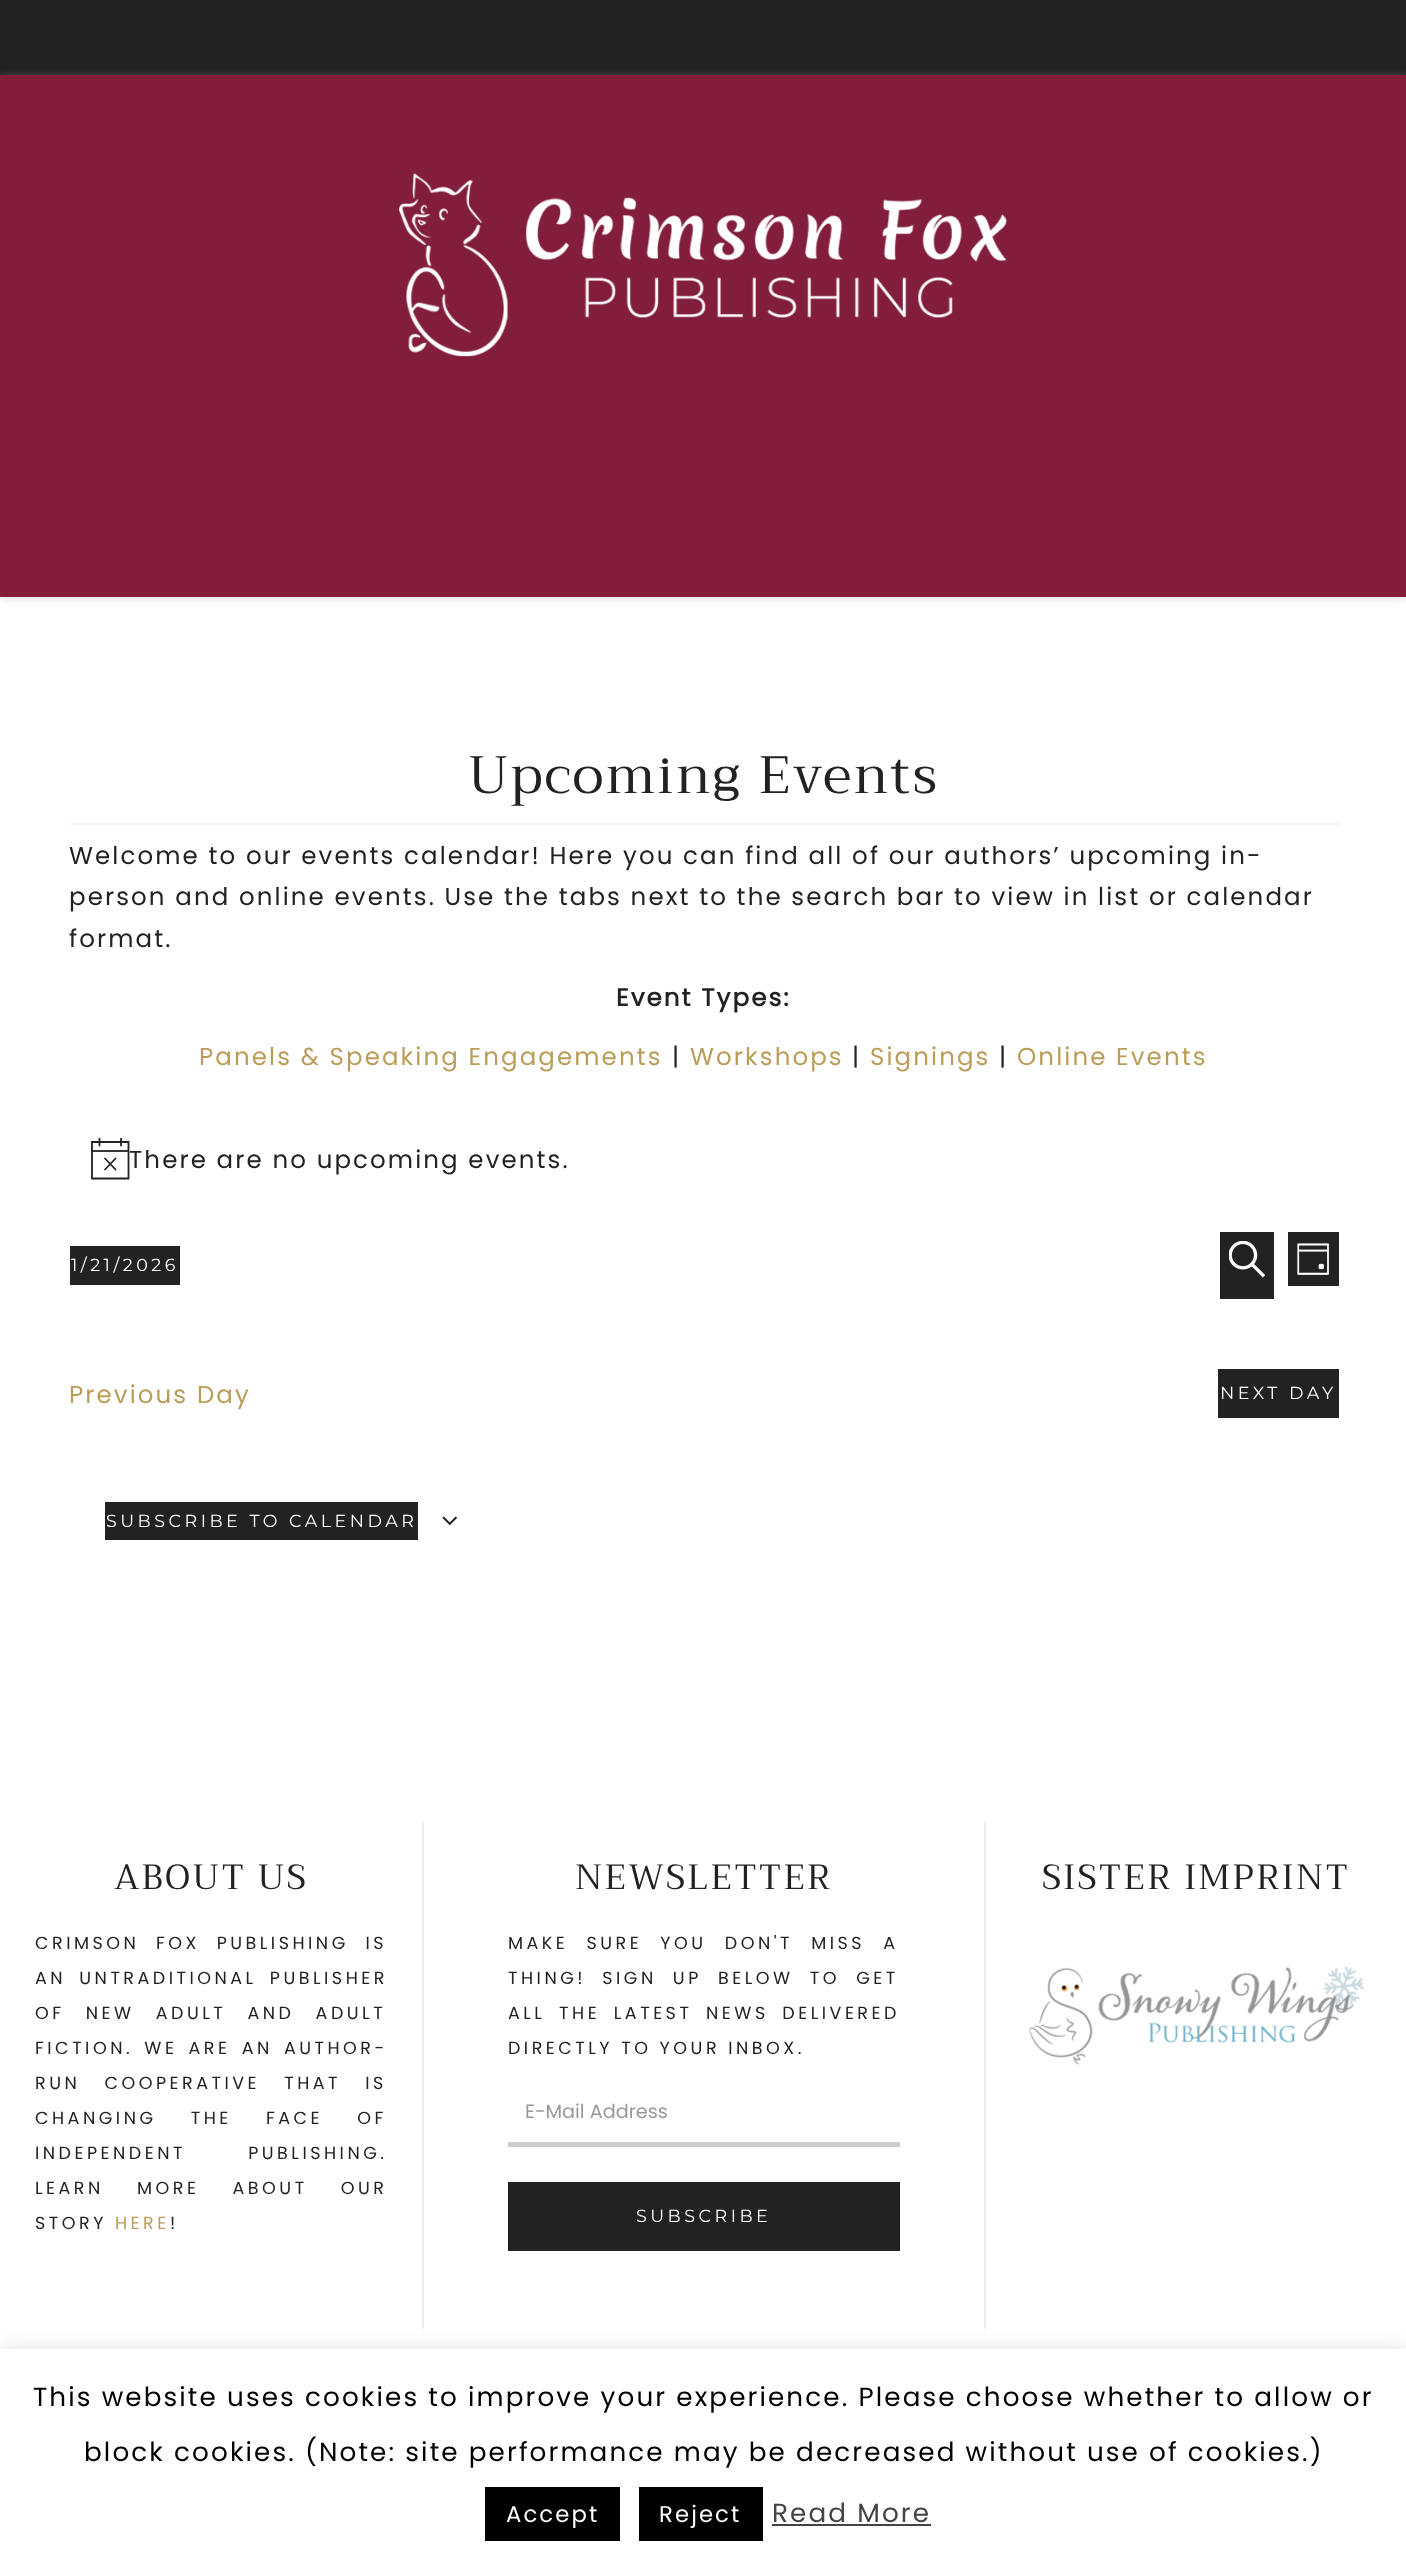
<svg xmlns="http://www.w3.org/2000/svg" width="1406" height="2562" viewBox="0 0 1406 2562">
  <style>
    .t1 { font: 52.5px Trirong; letter-spacing: 2.25px; fill: #222; }
    .t2 { font: 24.5px Poppins; letter-spacing: 2.1px; fill: #222; }
    .t3 { font: bold 24.5px Poppins; letter-spacing: 2.1px; fill: #222; }
    .t4 { font: 24.5px Poppins; letter-spacing: 2.1px; fill: #b99d58; }
    .t5 { font: 17.5px Montserrat; letter-spacing: 3.5px; fill: #fff; }
    .t6 { font: 35px Trirong; letter-spacing: 2.25px; fill: #222; }
    .t7 { font: 17.5px Poppins; letter-spacing: 3.5px; fill: #222; }
    .t8 { font: 17.5px Poppins; letter-spacing: 3.5px; fill: #b99d58; }
    .t9 { font: 19.25px Poppins; fill: #999; }
    .t10 { font: 26.25px Poppins; letter-spacing: 2.1px; fill: #000; }
    .t11 { font: 22.75px Poppins; letter-spacing: 2.1px; fill: #fff; }
    .t12 { font: 26.25px Poppins; letter-spacing: 2.1px; fill: #444; }
  </style>
  <defs>
    <clipPath id="clip1"><rect x="91" y="1138" width="39" height="43"/></clipPath>
  </defs>
  <rect width="100%" height="100%" fill="#fff"/>
  <rect x="0" y="0" width="1406" height="75" fill="#222"/>
  <rect x="0" y="77" width="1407" height="522" fill="#bebebe75" filter="blur(4.5px)"/>
  <rect x="0" y="75" width="1406" height="522" fill="#821e3c"/>
  <image x="399" y="173" width="608" height="184" href="images/1.png"/>
  <text x="468" y="793" class="t1">Upcoming Events</text>
  <rect x="70" y="823" width="1269" height="2" fill="#f3f3f3"/>
  <text x="69" y="864" class="t2">Welcome to our events calendar! Here you can find all of our authors’ upcoming in-</text>
  <text x="69" y="905" class="t2">person and online events. Use the tabs next to the search bar to view in list or calendar</text>
  <text x="69" y="947" class="t2">format.</text>
  <text x="616" y="1006" class="t3">Event Types:</text>
  <text x="199" y="1065" class="t4">Panels &amp; Speaking Engagements</text>
  <text x="672" y="1065" class="t2">|</text>
  <text x="690" y="1065" class="t4">Workshops</text>
  <text x="852" y="1065" class="t2">|</text>
  <text x="870" y="1065" class="t4">Signings</text>
  <text x="999" y="1065" class="t2">|</text>
  <text x="1017" y="1065" class="t4">Online Events</text>
  <path d="M92 1142H128.5V1178.5H92Z" fill="none" stroke="#222" stroke-width="1.8"/>
  <path d="M105 1158.5L115.5 1169.5M115.5 1158.5L105 1169.5" fill="none" stroke="#222" stroke-width="1.8" stroke-linecap="round"/>
  <g clip-path="url(#clip1)">
    <path d="M99.5 1138.5V1145.5M121 1138.5V1145.5" fill="none" stroke="#222" stroke-width="1.8" stroke-linecap="round"/>
  </g>
  <rect x="91" y="1150" width="38" height="2" fill="#222222e6"/>
  <text x="129" y="1168" class="t2">There are no upcoming events.</text>
  <rect x="70" y="1246" width="110" height="39" fill="#222"/>
  <text x="71" y="1271" class="t5">1/21/2026</text>
  <rect x="1220" y="1232" width="54" height="67" fill="#222"/>
  <image x="1229" y="1241" width="36" height="37" href="images/2.png"/>
  <rect x="1288" y="1232" width="51" height="54" fill="#222"/>
  <image x="1297" y="1243" width="32" height="32" href="images/3.png"/>
  <text x="69" y="1403" class="t4">Previous Day</text>
  <rect x="1218" y="1369" width="121" height="49" fill="#222"/>
  <text x="1220" y="1399" class="t5">NEXT DAY</text>
  <rect x="105" y="1502" width="313" height="38" fill="#222"/>
  <text x="106" y="1527" class="t5">SUBSCRIBE TO CALENDAR</text>
  <image x="442" y="1516" width="16" height="10" href="images/4.png"/>
  <text x="114" y="1889" class="t6">ABOUT US</text>
  <text x="35" y="1949" word-spacing="8.5" class="t7">CRIMSON FOX PUBLISHING IS</text>
  <text x="35" y="1984" word-spacing="5" class="t7">AN UNTRADITIONAL PUBLISHER</text>
  <text x="35" y="2019" word-spacing="13" class="t7">OF NEW ADULT AND ADULT</text>
  <text x="35" y="2054" word-spacing="3" class="t7">FICTION. WE ARE AN AUTHOR-</text>
  <text x="35" y="2089" word-spacing="16" class="t7">RUN COOPERATIVE THAT IS</text>
  <text x="35" y="2124" word-spacing="26" class="t7">CHANGING THE FACE OF</text>
  <text x="35" y="2159" word-spacing="54" class="t7">INDEPENDENT PUBLISHING.</text>
  <text x="35" y="2194" word-spacing="25" class="t7">LEARN MORE ABOUT OUR</text>
  <text x="35" y="2229" class="t7">STORY</text>
  <text x="115" y="2229" class="t8">HERE</text>
  <text x="170" y="2229" class="t7">!</text>
  <rect x="984" y="1822" width="2" height="507" fill="#eee"/>
  <rect x="422" y="1822" width="2" height="507" fill="#eee"/>
  <text x="575" y="1889" class="t6">NEWSLETTER</text>
  <text x="508" y="1949" word-spacing="10" class="t7">MAKE SURE YOU DON'T MISS A</text>
  <text x="508" y="1984" word-spacing="8" class="t7">THING! SIGN UP BELOW TO GET</text>
  <text x="508" y="2019" word-spacing="5.5" class="t7">ALL THE LATEST NEWS DELIVERED</text>
  <text x="508" y="2054" class="t7">DIRECTLY TO YOUR INBOX.</text>
  <rect x="508" y="2142" width="392" height="5" fill="#ccc"/>
  <text x="525" y="2118" class="t9">E-Mail Address</text>
  <rect x="508" y="2182" width="392" height="69" fill="#222"/>
  <text x="636" y="2222" class="t5">SUBSCRIBE</text>
  <text x="1042" y="1889" class="t6">SISTER IMPRINT</text>
  <image x="1029" y="1966" width="336" height="99" href="images/5.png"/>
  <rect x="0" y="2347" width="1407" height="213" fill="#acabab4d" filter="blur(9px)"/>
  <rect x="0" y="2349" width="1406" height="213" fill="#fff"/>
  <text x="33" y="2406" class="t10">This website uses cookies to improve your experience. Please choose whether to allow or</text>
  <text x="84" y="2461" class="t10">block cookies. (Note: site performance may be decreased without use of cookies.)</text>
  <rect x="485" y="2487" width="135" height="54" fill="#000"/>
  <text x="506" y="2522" class="t11">Accept</text>
  <rect x="639" y="2487" width="124" height="54" fill="#000"/>
  <text x="659" y="2522" class="t11">Reject</text>
  <text x="772" y="2522" class="t12">Read More</text>
  <rect x="772" y="2524" width="159" height="2" fill="#444"/>
</svg>
